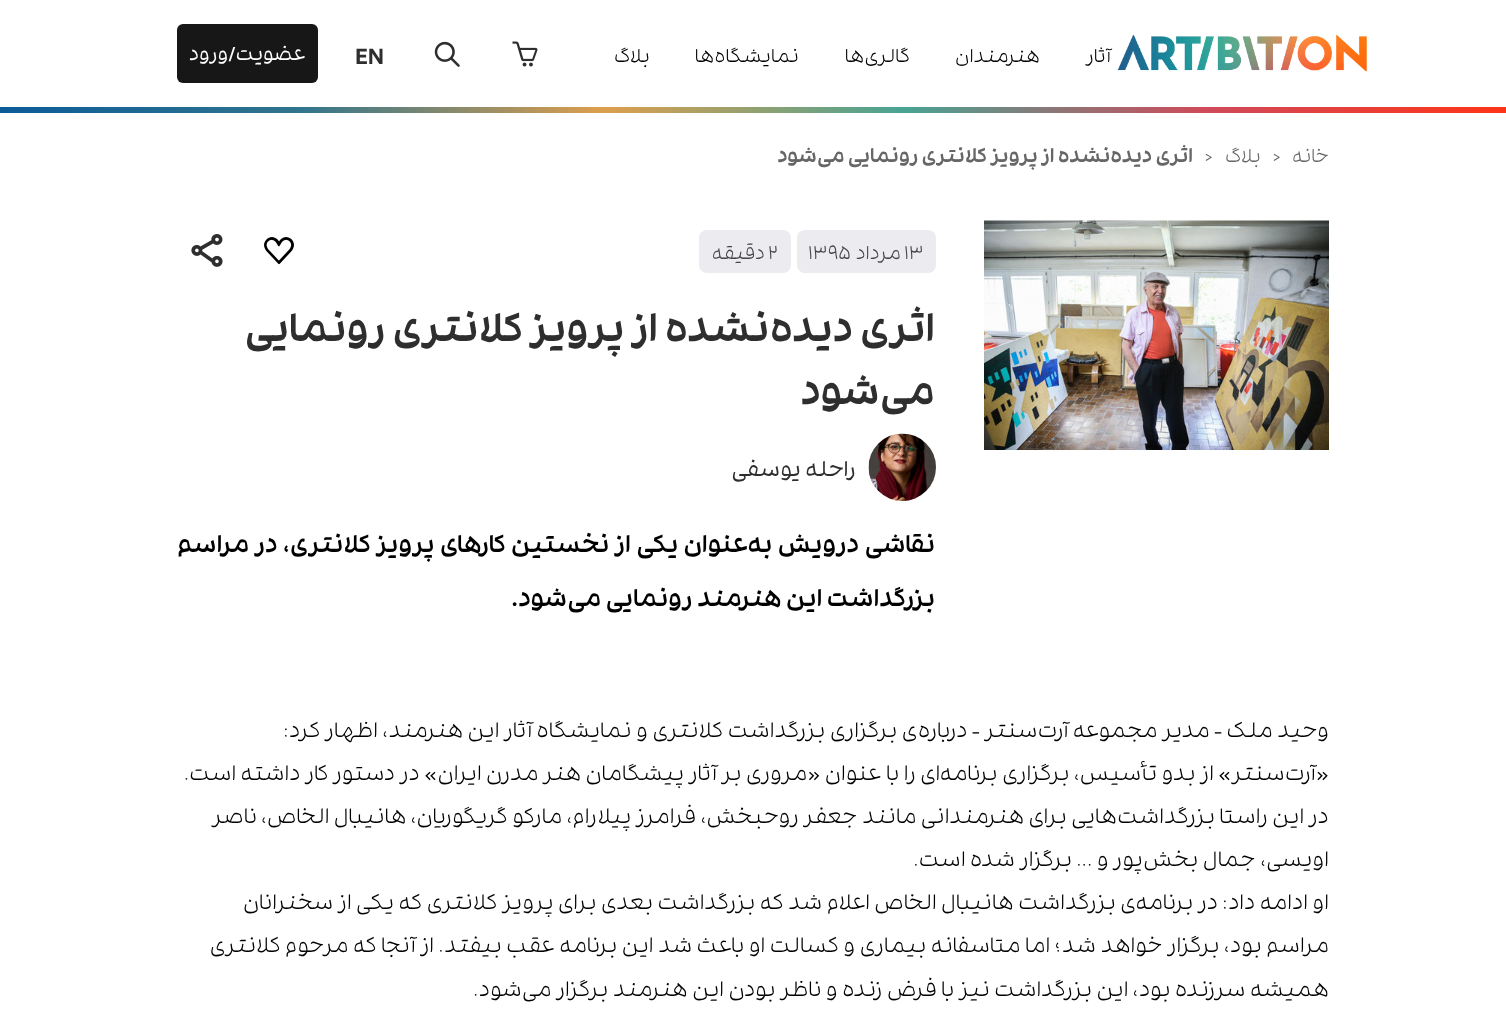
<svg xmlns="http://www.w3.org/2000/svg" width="1506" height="1018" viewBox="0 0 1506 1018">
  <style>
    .t1 { font: 24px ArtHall; direction: rtl; fill: #000; }
    .t2 { font: 600 27px ArtHall; fill: #2e2e2e; }
    .t3 { font: 500 24px ArtHall; direction: rtl; fill: #fff; }
    .t4 { font: 24px ArtHall; direction: rtl; fill: #666; }
    .t5 { font: 24px ArtHall; fill: #666; }
    .t6 { font: bold 24px ArtHall; direction: rtl; fill: #666; }
    .t7 { font: 24px ArtHall; fill: #464646; }
    .t8 { font: 24px ArtHall; direction: rtl; fill: #464646; }
    .t9 { font: bold 48px ArtHall; direction: rtl; fill: #2e2e2e; }
    .t10 { font: 500 27px ArtHall; direction: rtl; fill: #2e2e2e; }
    .t11 { font: 600 30px ArtHall; direction: rtl; fill: #000; }
    .t12 { font: 27px ArtHall; direction: rtl; fill: #000; }
  </style>
  <defs>
    <linearGradient id="g1" gradientUnits="userSpaceOnUse" x1="0" y1="110" x2="1506" y2="109"><stop offset="0" stop-color="#0c5b99"/><stop offset="0.2" stop-color="#31758c"/><stop offset="0.4" stop-color="#dd9e4d"/><stop offset="0.6" stop-color="#48a393"/><stop offset="0.8" stop-color="#cf4a5a"/><stop offset="1" stop-color="#ff3417"/></linearGradient>
  </defs>
  <rect width="100%" height="100%" fill="#fff"/>
  <image x="1117" y="35" width="250" height="37" href="images/1.png"/>
  <text x="1111" y="62" class="t1">آثار</text>
  <text x="1040" y="62" class="t1">هنرمندان</text>
  <text x="910" y="62" class="t1">گالری‌ها</text>
  <text x="799" y="62" class="t1">نمایشگاه‌ها</text>
  <text x="650" y="62" class="t1">بلاگ</text>
  <image x="512" y="41" width="26" height="26" href="images/2.png"/>
  <image x="434" y="41" width="26" height="26" href="images/3.png"/>
  <text x="355" y="64" class="t2">EN</text>
  <rect x="177" y="24" width="141" height="59" rx="6" fill="#171717"/>
  <text x="306" y="60" class="t3">عضویت/ورود</text>
  <rect x="0" y="107" width="1506" height="6" fill="url(#g1)"/>
  <text x="1329" y="162" class="t4">خانه</text>
  <text x="1273" y="162" class="t5">&gt;</text>
  <text x="1261" y="162" class="t4">بلاگ</text>
  <text x="1205" y="162" class="t5">&gt;</text>
  <text x="1193" y="162" class="t6">اثری دیده‌نشده از پرویز کلانتری رونمایی می‌شود</text>
  <image x="984" y="220" width="345" height="230" href="images/4.png"/>
  <rect x="797" y="230" width="139" height="43" rx="8" fill="#ebebf0"/>
  <text x="904" y="259" class="t7">۱۳</text>
  <text x="901" y="259" class="t8">مرداد</text>
  <text x="808" y="259" class="t7">۱۳۹۵</text>
  <rect x="699" y="230" width="92" height="43" rx="8" fill="#ebebf0"/>
  <text x="768" y="259" class="t7">۲</text>
  <text x="765" y="259" class="t8">دقیقه</text>
  <image x="264" y="237" width="30" height="28" href="images/5.png"/>
  <image x="191" y="234" width="32" height="33" href="images/6.png"/>
  <text x="935" y="341" class="t9">اثری دیده‌نشده از پرویز کلانتری رونمایی</text>
  <text x="935" y="404" class="t9">می‌شود</text>
  <image x="868" y="433" width="68" height="68" href="images/7.png"/>
  <text x="856" y="476" class="t10">راحله یوسفی</text>
  <text x="935" y="552" word-spacing="1" class="t11">نقاشی درویش به‌عنوان یکی از نخستین کارهای پرویز کلانتری، در مراسم</text>
  <text x="935" y="606" class="t11">بزرگداشت این هنرمند رونمایی می‌شود.</text>
  <text x="1329" y="737" class="t12">وحید ملک - مدیر مجموعه آرت‌سنتر - درباره‌ی برگزاری بزرگداشت کلانتری و نمایشگاه آثار این هنرمند، اظهار کرد:</text>
  <text x="1329" y="780" class="t12">«آرت‌سنتر» از بدو تأسیس، برگزاری برنامه‌ای را با عنوان «مروری بر آثار پیشگامان هنر مدرن ایران» در دستور کار داشته است.</text>
  <text x="1329" y="823" class="t12">در این راستا بزرگداشت‌هایی برای هنرمندانی مانند جعفر روحبخش، فرامرز پیلارام، مارکو گریگوریان، هانیبال الخاص، ناصر</text>
  <text x="1329" y="866" class="t12">اویسی، جمال بخش‌پور و ... برگزار شده است.</text>
  <text x="1329" y="909" class="t12">او ادامه داد: در برنامه‌ی بزرگداشت هانیبال الخاص اعلام شد که بزرگداشت بعدی برای پرویز کلانتری که یکی از سخنرانان</text>
  <text x="1329" y="952" class="t12">مراسم بود، برگزار خواهد شد؛ اما متاسفانه بیماری و کسالت او باعث شد این برنامه عقب بیفتد. از آنجا که مرحوم کلانتری</text>
  <text x="1329" y="996" class="t12">همیشه سرزنده بود، این بزرگداشت نیز با فرض زنده و ناظر بودن این هنرمند برگزار می‌شود.</text>
</svg>
